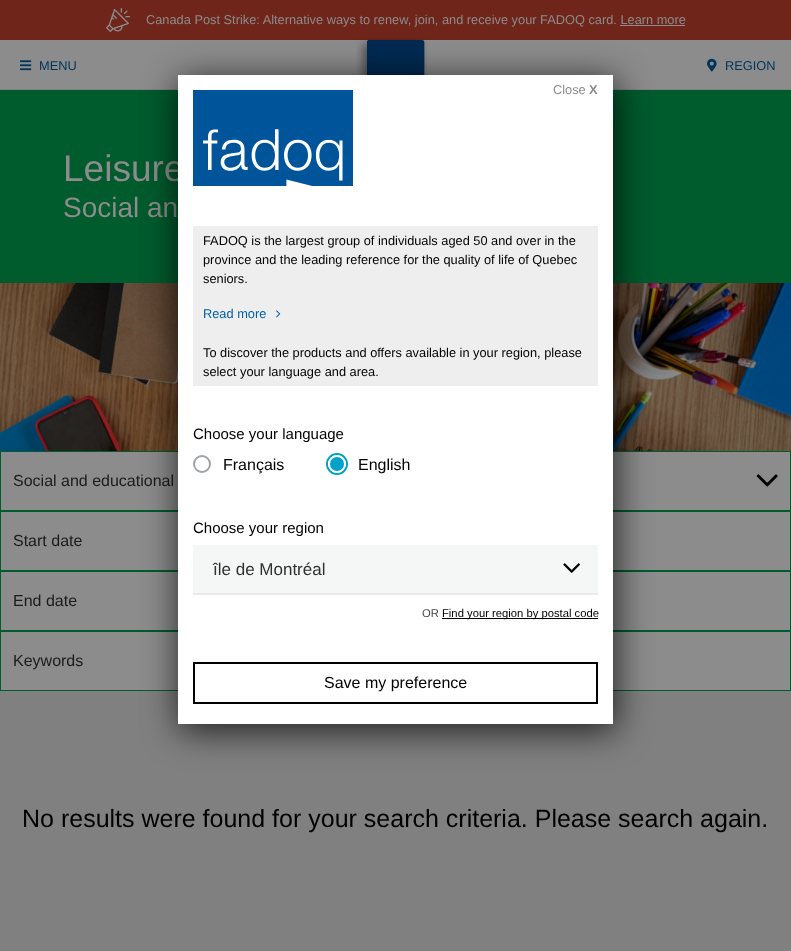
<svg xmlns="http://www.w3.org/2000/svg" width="791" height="951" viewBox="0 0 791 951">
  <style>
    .t1 { font: 12.8px Liberation Sans; fill: #8c8c8c; }
    .t2 { font: 12.8px Liberation Sans; fill: #00345b; }
    .t3 { font: 37px Liberation Sans; fill: #8c8c8c; }
    .t4 { font: 28px Liberation Sans; fill: #8c8c8c; }
    .t5 { font: 16px Liberation Sans; fill: #1b1b1b; }
    .t6 { font: 25px Liberation Sans; fill: #000; }
    .t7 { font: bold 12.8px Liberation Sans; fill: #8c8c8c; }
    .t8 { font: 12.8px Liberation Sans; fill: #000; }
    .t9 { font: 12.8px Liberation Sans; fill: #005ea6; }
    .t10 { font: 15px Liberation Sans; fill: #000; }
    .t11 { font: 16px Liberation Sans; fill: #000; }
    .t12 { font: 17px Liberation Sans; fill: #313131; }
    .t13 { font: 11.25px Liberation Sans; fill: #4a4a4a; }
    .t14 { font: 11.25px Liberation Sans; fill: #000; }
  </style>
  <rect width="100%" height="100%" fill="#8c8c8c"/>
  <rect x="0" y="0" width="791" height="40" fill="#6f2519"/>
  <image x="106" y="8" width="24" height="24" href="images/1.png"/>
  <text x="146" y="24" class="t1">Canada Post Strike: Alternative ways to renew, join, and receive your FADOQ card. Learn more</text>
  <rect x="620" y="25" width="65" height="1" fill="#8c8c8c"/>
  <rect x="0" y="89" width="791" height="1" fill="#818181"/>
  <image x="20" y="60" width="12" height="11" href="images/2.png"/>
  <text x="39" y="70" class="t2">MENU</text>
  <image x="356" y="37" width="71" height="38" href="images/3.png"/>
  <image x="707" y="58" width="10" height="14" href="images/4.png"/>
  <text x="725" y="70" class="t2">REGION</text>
  <rect x="0" y="90" width="791" height="361" fill="#005b2d"/>
  <text x="63" y="181" class="t3">Leisure</text>
  <text x="63" y="217" class="t4">Social an</text>
  <image x="0" y="283" width="791" height="168" href="images/5.png"/>
  <rect x="0.5" y="451.5" width="790" height="59" fill="none" stroke="#005b2d"/>
  <text x="13" y="486" class="t5">Social and educational</text>
  <image x="756" y="474" width="22" height="13" href="images/6.png"/>
  <rect x="0.5" y="511.5" width="790" height="59" fill="none" stroke="#005b2d"/>
  <text x="13" y="546" class="t5">Start date</text>
  <rect x="0.5" y="571.5" width="790" height="59" fill="none" stroke="#005b2d"/>
  <text x="13" y="606" class="t5">End date</text>
  <rect x="0.5" y="631.5" width="790" height="59" fill="none" stroke="#005b2d"/>
  <text x="13" y="666" class="t5">Keywords</text>
  <rect x="0" y="691" width="791" height="260" fill="#808080"/>
  <text x="22" y="827" class="t6">No results were found for your search criteria. Please search again.</text>
  <rect x="179" y="80" width="437" height="651" fill="#000000bf" filter="blur(17.5px)"/>
  <rect x="178" y="75" width="435" height="649" fill="#fff"/>
  <image x="193" y="90" width="160" height="96" href="images/7.png"/>
  <text x="553" y="94" class="t1">Close</text>
  <text x="589" y="94" class="t7">X</text>
  <rect x="193" y="226" width="405" height="160" fill="#eee"/>
  <text x="203" y="245" class="t8">FADOQ is the largest group of individuals aged 50 and over in the</text>
  <text x="203" y="264" class="t8">province and the leading reference for the quality of life of Quebec</text>
  <text x="203" y="283" class="t8">seniors.</text>
  <text x="203" y="318" class="t9">Read more</text>
  <image x="276" y="310" width="5" height="8" href="images/8.png"/>
  <text x="203" y="357" class="t8">To discover the products and offers available in your region, please</text>
  <text x="203" y="376" class="t8">select your language and area.</text>
  <text x="193" y="439" class="t10">Choose your language</text>
  <circle cx="202" cy="464" r="8" fill="none" stroke="#9fa3a7" stroke-width="2"/>
  <text x="223" y="470" class="t11">Français</text>
  <circle cx="337" cy="464" r="10" fill="none" stroke="#00a1cb" stroke-width="2"/>
  <circle cx="337" cy="464" r="8" fill="#00a1cb" stroke="#fff" stroke-width="2"/>
  <text x="358" y="470" class="t11">English</text>
  <text x="193" y="533" class="t10">Choose your region</text>
  <rect x="193" y="545" width="405" height="48" fill="#f5f6f6"/>
  <rect x="193" y="593" width="405" height="2" fill="#e8e9e9"/>
  <text x="213" y="575" class="t12">île de Montréal</text>
  <image x="563" y="563" width="17" height="10" href="images/9.png"/>
  <text x="422" y="617" class="t13">OR</text>
  <rect x="442" y="618" width="156" height="1" fill="#000"/>
  <text x="442" y="617" class="t14">Find your region by postal code</text>
  <rect x="194" y="663" width="403" height="40" fill="none" stroke="#000" stroke-width="2"/>
  <text x="324" y="688" class="t11">Save my preference</text>
</svg>
